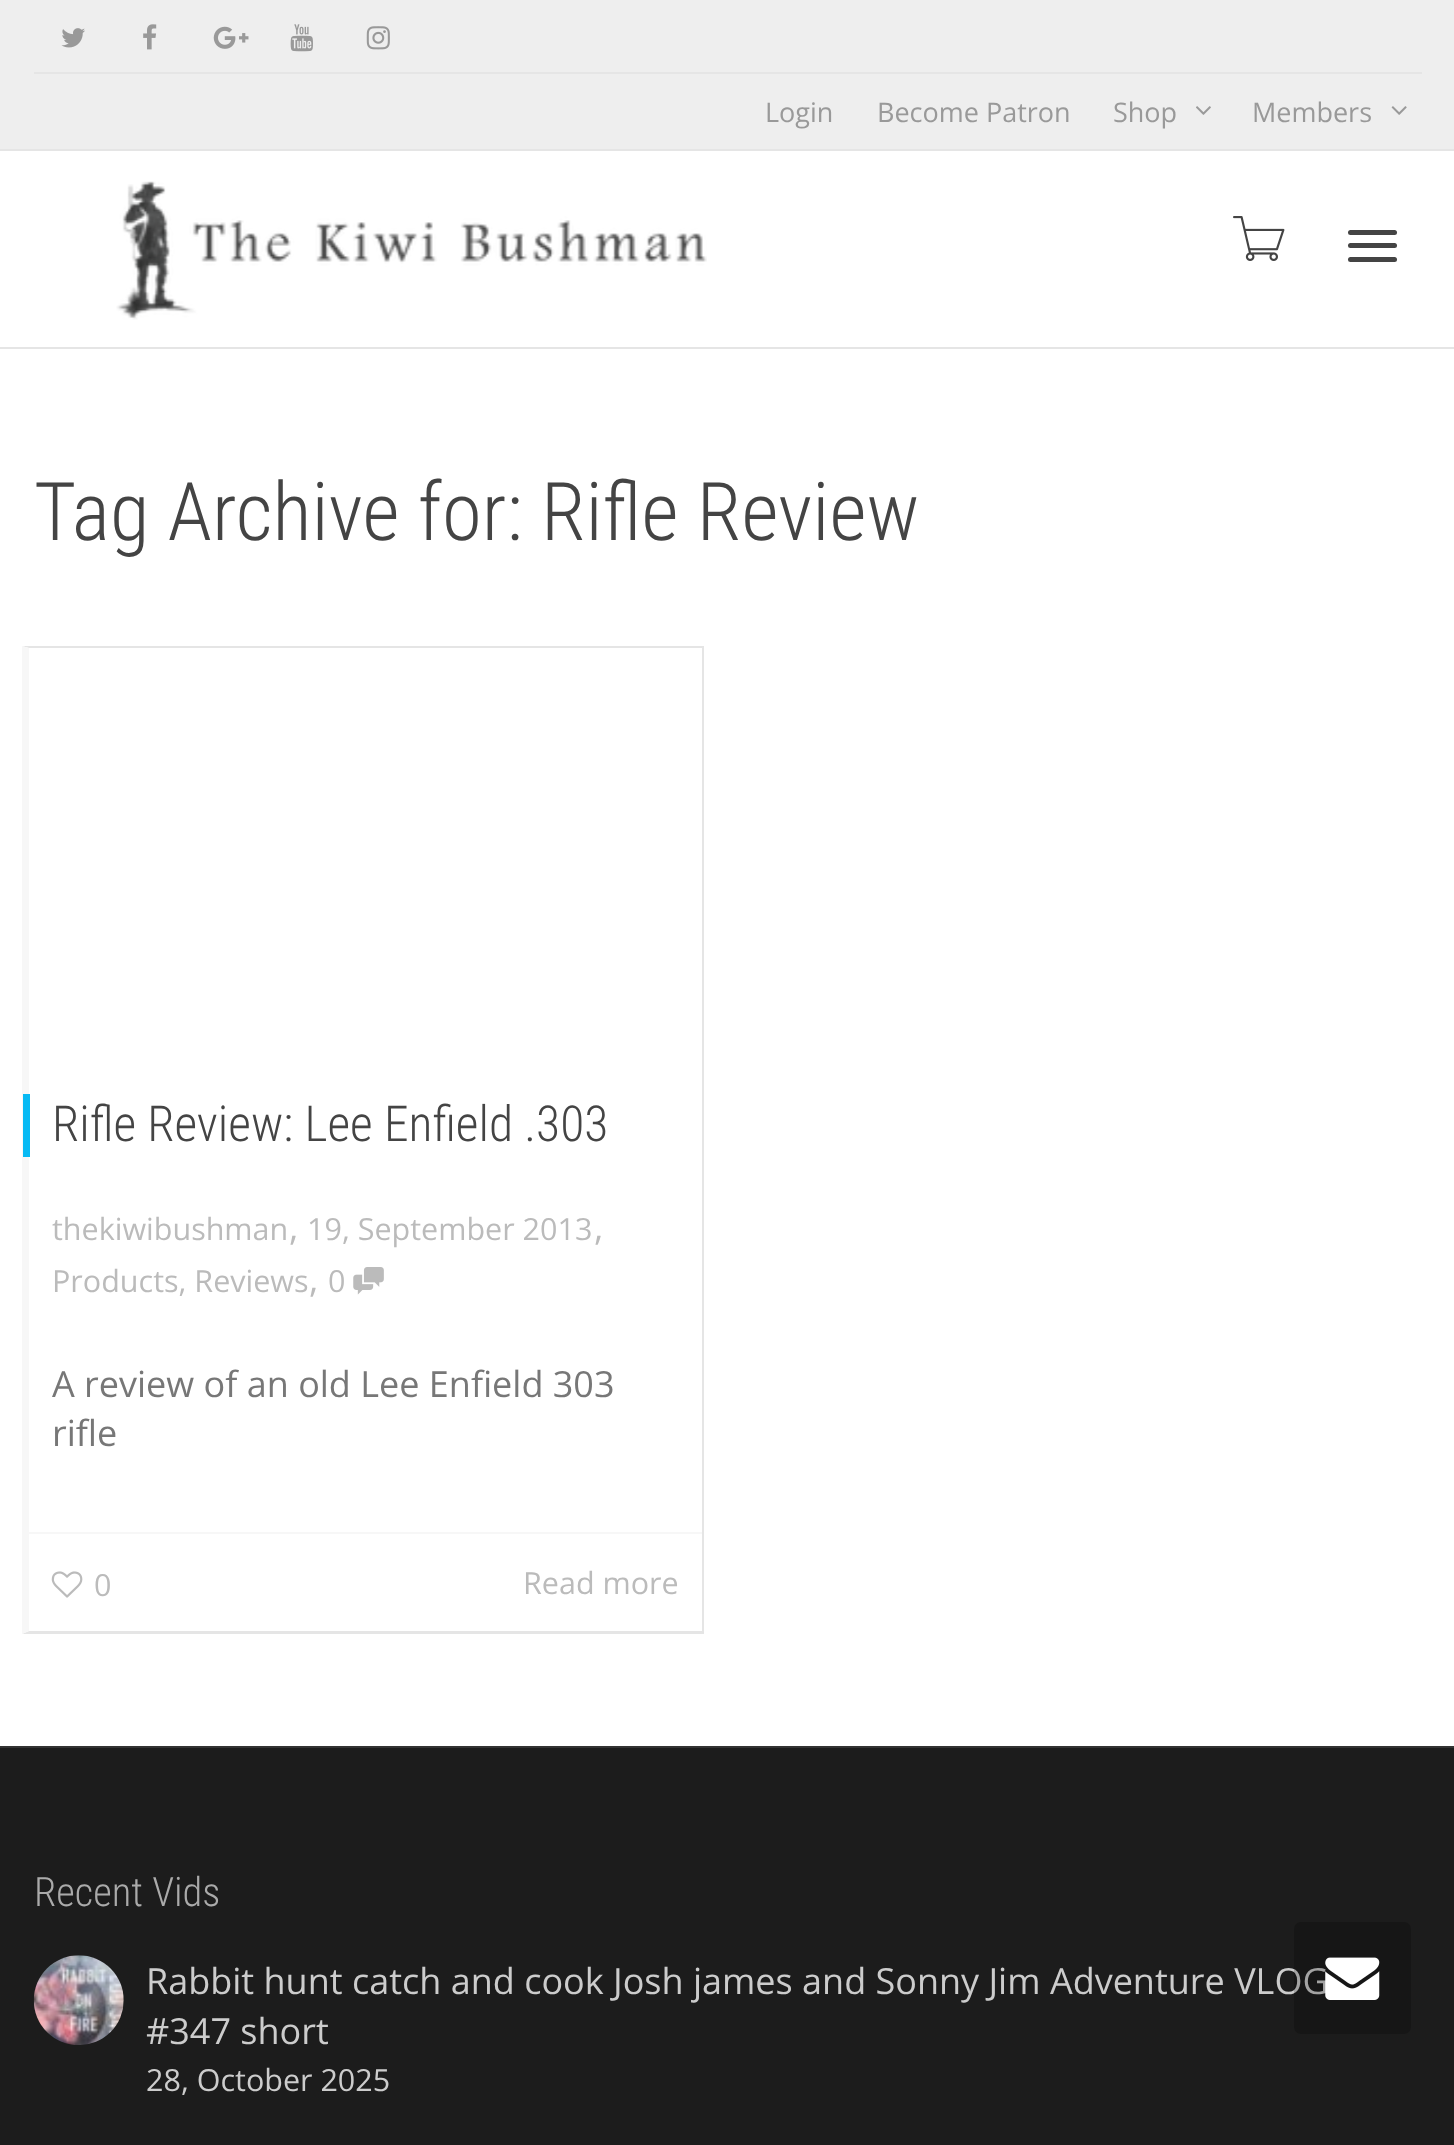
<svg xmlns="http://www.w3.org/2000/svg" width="1454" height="2145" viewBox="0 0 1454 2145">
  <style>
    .t1 { font: 27px Open Sans; fill: #999; }
    .t2 { font: 300 81px Roboto Condensed; fill: #444; }
    .t3 { font: 300 49.5px Roboto Condensed; fill: #444; }
    .t4 { font: 30.5px Open Sans; fill: #bbb; }
    .t5 { font: 36px Open Sans; fill: #bbb; }
    .t6 { font: 36px Open Sans; fill: #777; }
    .t7 { font: 300 40.5px Roboto Condensed; fill: #aaa; }
    .t8 { font: 36px Open Sans; fill: #ccc; }
    .t9 { font: 30.5px Open Sans; fill: #ccc; }
  </style>
  <rect width="100%" height="100%" fill="#fff"/>
  <rect x="0" y="0" width="1454" height="149" fill="#eee"/>
  <rect x="0" y="149" width="1454" height="2" fill="#e5e5e5"/>
  <rect x="34" y="72" width="1388" height="2" fill="#e5e5e5"/>
  <image x="61" y="28" width="24" height="20" href="images/1.png"/>
  <image x="143" y="24" width="14" height="26" href="images/2.png"/>
  <image x="213" y="26" width="36" height="23" href="images/3.png"/>
  <image x="290" y="24" width="23" height="28" href="images/4.png"/>
  <image x="366" y="26" width="24" height="24" href="images/5.png"/>
  <text x="765" y="122" class="t1">Login</text>
  <text x="877" y="122" class="t1">Become Patron</text>
  <text x="1113" y="122" class="t1">Shop</text>
  <image x="1196" y="106" width="15" height="9" href="images/6.png"/>
  <text x="1252" y="122" class="t1">Members</text>
  <image x="1391" y="106" width="16" height="9" href="images/7.png"/>
  <rect x="0" y="347" width="1454" height="2" fill="#e5e5e5"/>
  <image x="116" y="181" width="591" height="139" href="images/8.png"/>
  <image x="1233" y="216" width="52" height="45" href="images/9.png"/>
  <rect x="1348" y="230" width="49" height="5" rx="2.5" fill="#444"/>
  <rect x="1348" y="243" width="49" height="5" rx="2.5" fill="#444"/>
  <rect x="1348" y="257" width="49" height="5" rx="2.5" fill="#444"/>
  <text x="34" y="540" class="t2">Tag Archive for: Rifle Review</text>
  <path d="M22 646H704L702 648H29Z" fill="#e5e5e5"/>
  <rect x="702" y="646" width="2" height="988" fill="#e5e5e5"/>
  <path d="M704 1634H22L29 1631H702Z" fill="#e5e5e5"/>
  <path d="M22 1634V646L29 648V1631Z" fill="#f7f7f7"/>
  <rect x="23" y="1094" width="7" height="63" fill="#07baf4"/>
  <text x="52" y="1141" class="t3">Rifle Review: Lee Enfield .303</text>
  <text x="52" y="1240" class="t4">thekiwibushman</text>
  <text x="289" y="1240" class="t5">,</text>
  <text x="307" y="1240" class="t4">19, September 2013</text>
  <text x="594" y="1240" class="t5">,</text>
  <text x="52" y="1292" class="t4">Products, Reviews</text>
  <text x="309" y="1292" class="t5">,</text>
  <text x="328" y="1292" class="t4">0</text>
  <image x="353" y="1267" width="31" height="28" href="images/10.png"/>
  <text x="52" y="1397" class="t6">A review of an old Lee Enfield 303</text>
  <text x="52" y="1446" class="t6">rifle</text>
  <rect x="29" y="1532" width="673" height="2" fill="#f7f7f7"/>
  <image x="51" y="1571" width="32" height="27" href="images/11.png"/>
  <text x="94" y="1596" class="t4">0</text>
  <text x="523" y="1594" class="t4">Read more</text>
  <rect x="0" y="1748" width="1454" height="397" fill="#1c1c1c"/>
  <rect x="0" y="1746" width="1454" height="2" fill="#333"/>
  <text x="34" y="1906" class="t7">Recent Vids</text>
  <image x="33" y="1955" width="91" height="90" href="images/12.png"/>
  <text x="146" y="1994" class="t8">Rabbit hunt catch and cook Josh james and Sonny Jim Adventure VLOG</text>
  <text x="146" y="2044" class="t8">#347 short</text>
  <text x="146" y="2091" class="t9">28, October 2025</text>
  <rect x="1294" y="1922" width="117" height="112" rx="7" fill="#00000033"/>
  <image x="1325" y="1957" width="55" height="43" href="images/13.png"/>
</svg>
